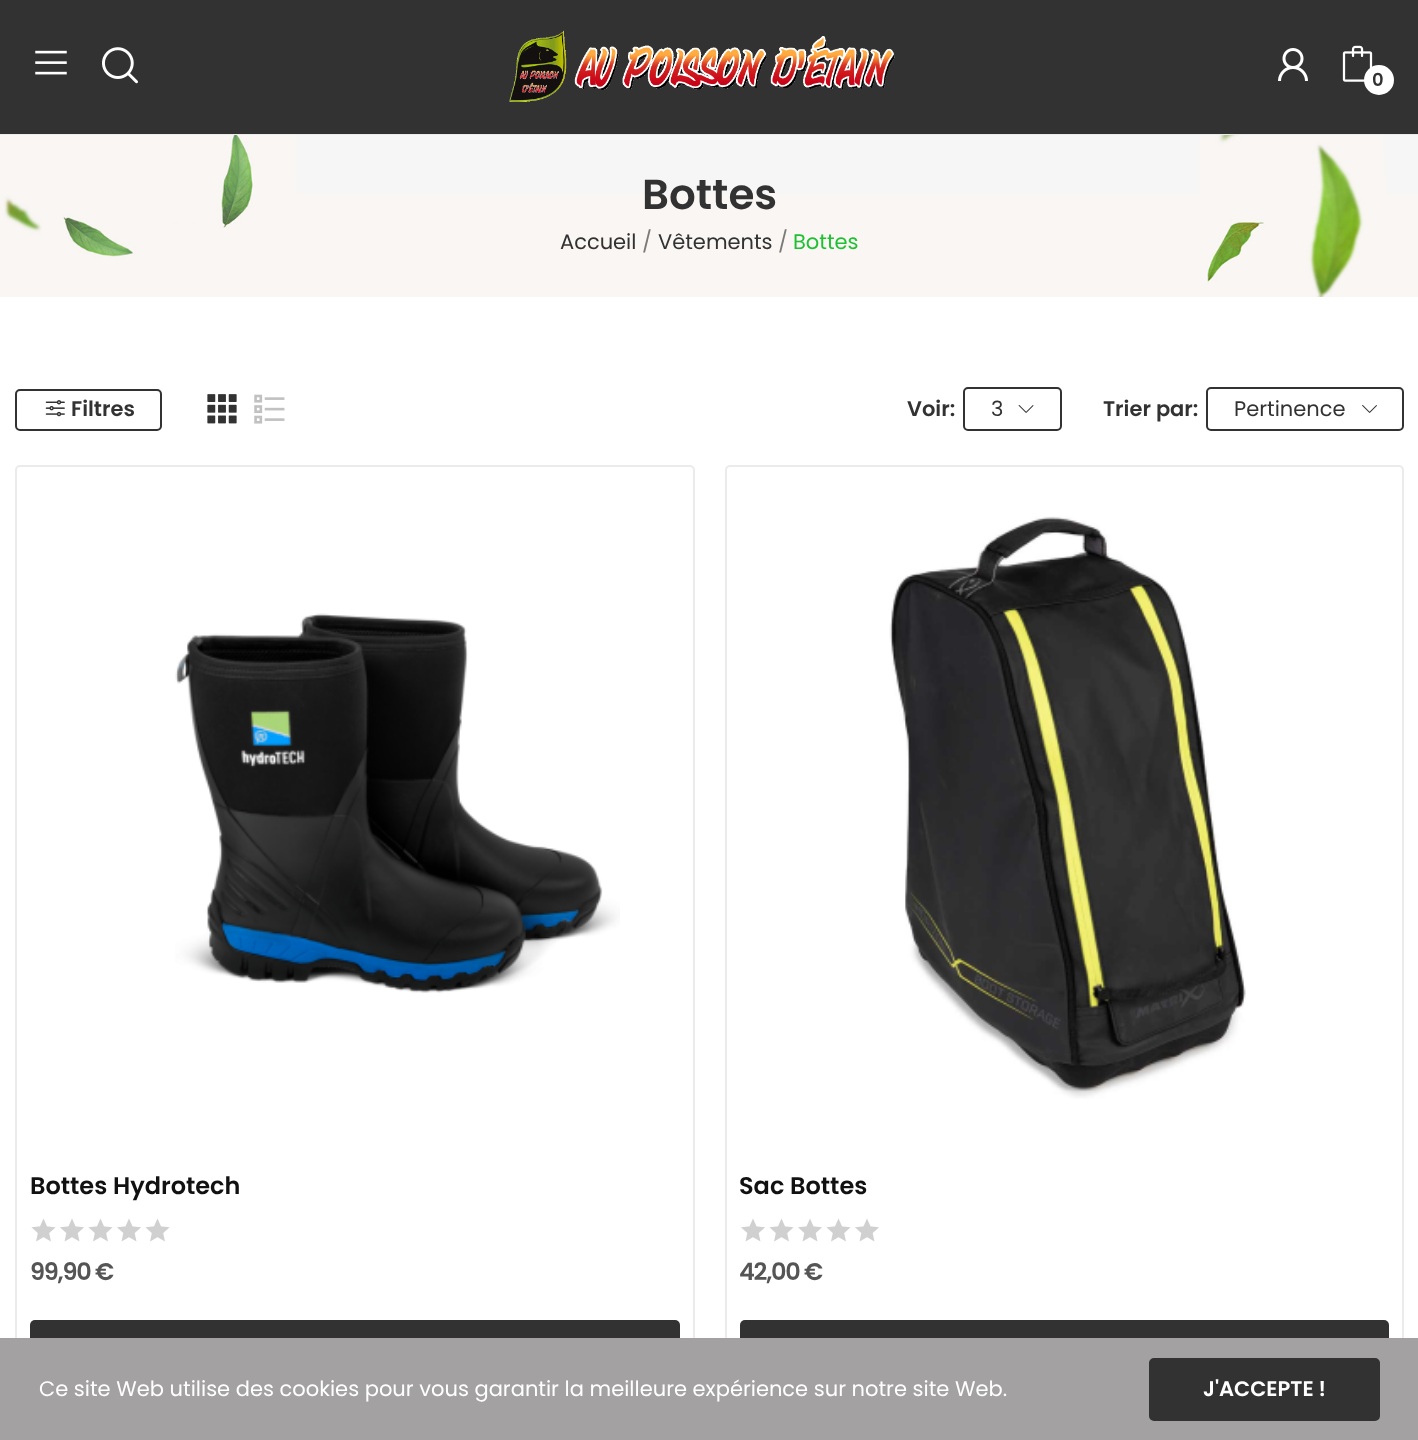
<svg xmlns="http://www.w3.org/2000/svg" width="1418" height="1440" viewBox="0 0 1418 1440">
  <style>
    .t1 { font: 600 18px Poppins; fill: #323232; }
    .t2 { font: 600 42px Poppins; fill: #323232; }
    .t3 { font: 21px Poppins; fill: #323232; }
    .t4 { font: 21px Poppins; fill: #7a7a7a; }
    .t5 { font: 21px Poppins; fill: #1fc034; }
    .t6 { font: 600 21px Poppins; fill: #323232; }
    .t7 { font: 600 24px Poppins; fill: #121111; }
    .t8 { font: 600 24px Poppins; letter-spacing: -1.25px; fill: #555; }
    .t9 { font: 21px Poppins; fill: #fff; }
    .t10 { font: 600 21px Poppins; fill: #fff; }
  </style>
  <rect width="100%" height="100%" fill="#fff"/>
  <rect x="0" y="134" width="1418" height="1" fill="#ebebeb"/>
  <rect x="0" y="0" width="1418" height="134" fill="#323232"/>
  <image x="35" y="50" width="32" height="25" href="images/1.png"/>
  <image x="102" y="47" width="36" height="37" href="images/2.png"/>
  <image x="509" y="30" width="386" height="72" href="images/3.png"/>
  <image x="1278" y="48" width="30" height="33" href="images/4.png"/>
  <image x="1342" y="45" width="31" height="37" href="images/5.png"/>
  <circle cx="1379" cy="80" r="15" fill="#fff"/>
  <text x="1372" y="86" class="t1">0</text>
  <image x="0" y="135" width="1418" height="162" href="images/6.png"/>
  <text x="642" y="209" class="t2">Bottes</text>
  <text x="560" y="249" class="t3">Accueil</text>
  <text x="642" y="249" class="t4">/</text>
  <text x="658" y="249" class="t3">Vêtements</text>
  <text x="778" y="249" class="t4">/</text>
  <text x="793" y="249" class="t5">Bottes</text>
  <rect x="16" y="390" width="145" height="40" rx="4" fill="none" stroke="#323232" stroke-width="2"/>
  <image x="45" y="400" width="20" height="17" href="images/7.png"/>
  <text x="71" y="416" class="t6">Filtres</text>
  <image x="207" y="394" width="30" height="30" href="images/8.png"/>
  <image x="254" y="394" width="31" height="30" href="images/9.png"/>
  <text x="907" y="416" class="t6">Voir:</text>
  <rect x="964" y="388" width="97" height="42" rx="4" fill="none" stroke="#323232" stroke-width="2"/>
  <text x="991" y="416" class="t3">3</text>
  <image x="1018" y="405" width="16" height="8" href="images/10.png"/>
  <text x="1103" y="416" class="t6">Trier par:</text>
  <rect x="1207" y="388" width="196" height="42" rx="4" fill="none" stroke="#323232" stroke-width="2"/>
  <text x="1234" y="416" class="t3">Pertinence</text>
  <image x="1362" y="405" width="15" height="8" href="images/11.png"/>
  <rect x="16" y="466" width="678" height="951" rx="4" fill="none" stroke="#ebebeb" stroke-width="2"/>
  <image x="175" y="613" width="445" height="380" href="images/12.png"/>
  <text x="30" y="1194" class="t7">Bottes Hydrotech</text>
  <image x="31" y="1218" width="139" height="24" href="images/13.png"/>
  <text x="30" y="1280" class="t8">99,90 €</text>
  <rect x="30" y="1320" width="650" height="63" rx="5" fill="#323232"/>
  <rect x="726" y="466" width="677" height="951" rx="4" fill="none" stroke="#ebebeb" stroke-width="2"/>
  <image x="889" y="516" width="357" height="583" href="images/14.png"/>
  <text x="739" y="1194" class="t7">Sac Bottes</text>
  <image x="741" y="1218" width="138" height="24" href="images/15.png"/>
  <text x="739" y="1280" class="t8">42,00 €</text>
  <rect x="740" y="1320" width="649" height="63" rx="5" fill="#323232"/>
  <rect x="0" y="1338" width="1418" height="102" fill="#a4a1a2"/>
  <text x="39" y="1396" class="t9">Ce site Web utilise des cookies pour vous garantir la meilleure expérience sur notre site Web.</text>
  <rect x="1150" y="1359" width="229" height="61" rx="4" fill="#323232" stroke="#323232" stroke-width="2"/>
  <text x="1203" y="1396" class="t10">J'ACCEPTE !</text>
</svg>
